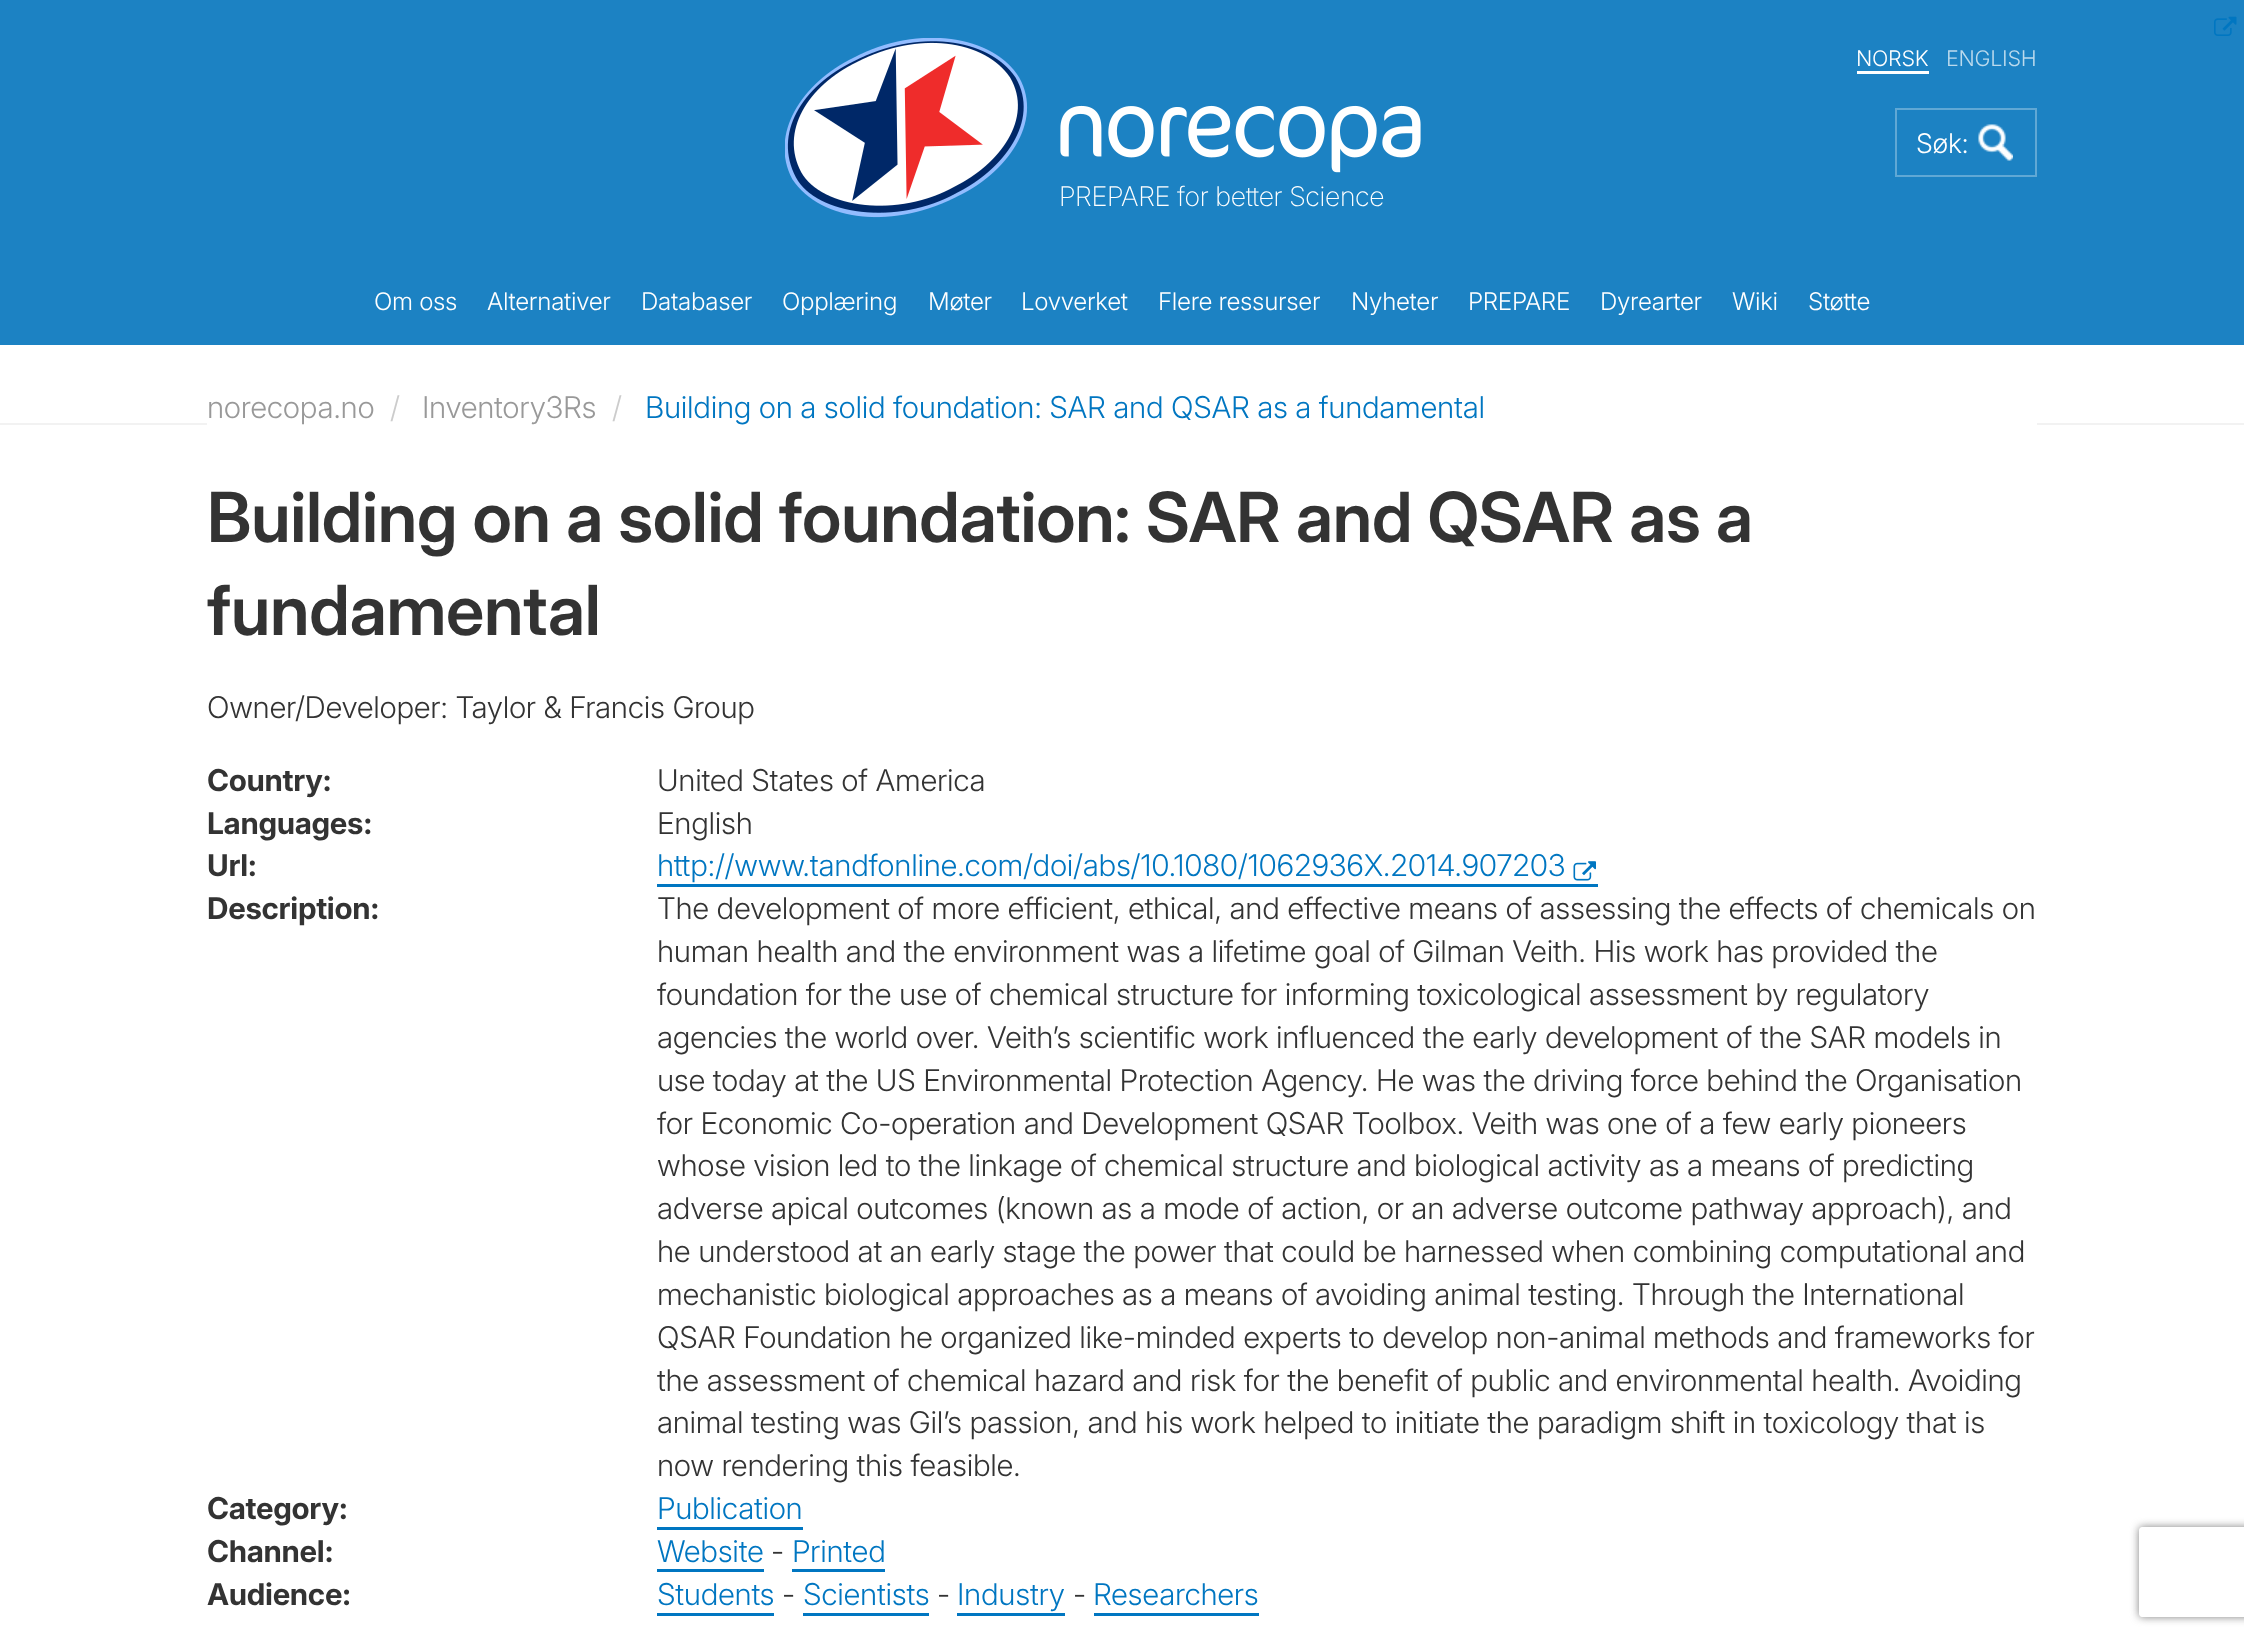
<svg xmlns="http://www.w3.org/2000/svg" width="2244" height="1638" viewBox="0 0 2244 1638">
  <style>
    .t1 { font: 300 21.5px 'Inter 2'; letter-spacing: -0.3px; fill: #fff; }
    .t2 { font: 300 21.5px 'Inter 2'; letter-spacing: -0.3px; fill: #bbdaed; }
    .t3 { font: 300 27px 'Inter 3'; letter-spacing: -0.3px; fill: #fff; }
    .t4 { font: 200 27px Inter; letter-spacing: -0.3px; fill: #fff; }
    .t5 { font: 300 24.25px 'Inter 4'; letter-spacing: -0.3px; fill: #fff; }
    .t6 { font: 300 30px Inter; letter-spacing: -0.3px; fill: #999; }
    .t7 { font: 300 30px Inter; letter-spacing: -0.3px; fill: #ccc; }
    .t8 { font: 300 30px Inter; letter-spacing: -0.3px; fill: #0076c1; }
    .t9 { font: 600 69px Inter; letter-spacing: -0.3px; fill: #333; }
    .t10 { font: 300 30px Inter; letter-spacing: -0.3px; fill: #333; }
    .t11 { font: bold 30px Inter; letter-spacing: -0.3px; fill: #333; }
  </style>
  <defs>
    <clipPath id="clip1"><path d="M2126 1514H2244V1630H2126ZM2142 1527H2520C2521.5 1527 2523 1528.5 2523 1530V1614C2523 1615.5 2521.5 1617 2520 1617H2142C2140.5 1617 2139 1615.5 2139 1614V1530C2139 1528.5 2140.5 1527 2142 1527Z" clip-rule="evenodd"/></clipPath>
  </defs>
  <rect width="100%" height="100%" fill="#fff"/>
  <rect x="0" y="0" width="2244" height="345" fill="#1c82c3"/>
  <image x="2214" y="16" width="23" height="20" href="images/1.png"/>
  <text x="1856" y="66" class="t1">NORSK</text>
  <rect x="1857" y="71" width="72" height="3" fill="#fff"/>
  <text x="1946" y="66" class="t2">ENGLISH</text>
  <rect x="1896" y="109" width="140" height="67" fill="none" stroke="#60a8d5" stroke-width="2"/>
  <text x="1916" y="153" class="t3">Søk:</text>
  <image x="1978" y="124" width="35" height="37" href="images/2.png"/>
  <image x="785" y="38" width="636" height="180" href="images/3.png"/>
  <text x="1059" y="206" class="t4">PREPARE for better Science</text>
  <text x="374" y="310" class="t5">Om oss</text>
  <text x="487" y="310" class="t5">Alternativer</text>
  <text x="641" y="310" class="t5">Databaser</text>
  <text x="782" y="310" class="t5">Opplæring</text>
  <text x="928" y="310" class="t5">Møter</text>
  <text x="1021" y="310" class="t5">Lovverket</text>
  <text x="1158" y="310" class="t5">Flere ressurser</text>
  <text x="1351" y="310" class="t5">Nyheter</text>
  <text x="1468" y="310" class="t5">PREPARE</text>
  <text x="1600" y="310" class="t5">Dyrearter</text>
  <text x="1732" y="310" class="t5">Wiki</text>
  <text x="1808" y="310" class="t5">Støtte</text>
  <rect x="0" y="423" width="2244" height="2" fill="#f2f2f2"/>
  <rect x="207" y="375" width="1830" height="66" rx="6" fill="#fff"/>
  <text x="207" y="418" class="t6">norecopa.no</text>
  <text x="390" y="418" class="t7">/</text>
  <text x="422" y="418" class="t6">Inventory3Rs</text>
  <text x="612" y="418" class="t7">/</text>
  <text x="645" y="418" class="t8">Building on a solid foundation: SAR and QSAR as a fundamental</text>
  <text x="207" y="542" class="t9">Building on a solid foundation: SAR and QSAR as a</text>
  <text x="207" y="635" class="t9">fundamental</text>
  <text x="207" y="718" class="t10">Owner/Developer: Taylor &amp; Francis Group</text>
  <text x="207" y="791" class="t11">Country:</text>
  <text x="657" y="791" class="t10">United States of America</text>
  <text x="207" y="834" class="t11">Languages:</text>
  <text x="657" y="834" class="t10">English</text>
  <text x="207" y="876" class="t11">Url:</text>
  <text x="657" y="876" class="t8">http://www.tandfonline.com/doi/abs/10.1080/1062936X.2014.907203</text>
  <rect x="657" y="884" width="941" height="3" fill="#0076c1"/>
  <image x="1573" y="861" width="23" height="20" href="images/4.png"/>
  <text x="207" y="919" class="t11">Description:</text>
  <text x="657" y="919" class="t10">The development of more efficient, ethical, and effective means of assessing the effects of chemicals on</text>
  <text x="657" y="962" class="t10">human health and the environment was a lifetime goal of Gilman Veith. His work has provided the</text>
  <text x="657" y="1005" class="t10">foundation for the use of chemical structure for informing toxicological assessment by regulatory</text>
  <text x="657" y="1048" class="t10">agencies the world over. Veith’s scientific work influenced the early development of the SAR models in</text>
  <text x="657" y="1091" class="t10">use today at the US Environmental Protection Agency. He was the driving force behind the Organisation</text>
  <text x="657" y="1134" class="t10">for Economic Co-operation and Development QSAR Toolbox. Veith was one of a few early pioneers</text>
  <text x="657" y="1176" class="t10">whose vision led to the linkage of chemical structure and biological activity as a means of predicting</text>
  <text x="657" y="1219" class="t10">adverse apical outcomes (known as a mode of action, or an adverse outcome pathway approach), and</text>
  <text x="657" y="1262" class="t10">he understood at an early stage the power that could be harnessed when combining computational and</text>
  <text x="657" y="1305" class="t10">mechanistic biological approaches as a means of avoiding animal testing. Through the International</text>
  <text x="657" y="1348" class="t10">QSAR Foundation he organized like-minded experts to develop non-animal methods and frameworks for</text>
  <text x="657" y="1391" class="t10">the assessment of chemical hazard and risk for the benefit of public and environmental health. Avoiding</text>
  <text x="657" y="1433" class="t10">animal testing was Gil’s passion, and his work helped to initiate the paradigm shift in toxicology that is</text>
  <text x="657" y="1476" class="t10">now rendering this feasible.</text>
  <text x="207" y="1519" class="t11">Category:</text>
  <text x="657" y="1519" class="t8">Publication</text>
  <rect x="657" y="1527" width="146" height="3" fill="#0076c1"/>
  <text x="207" y="1562" class="t11">Channel:</text>
  <text x="657" y="1562" class="t8">Website</text>
  <rect x="657" y="1569" width="107" height="3" fill="#0076c1"/>
  <text x="771" y="1562" class="t10">-</text>
  <text x="792" y="1562" class="t8">Printed</text>
  <rect x="792" y="1569" width="93" height="3" fill="#0076c1"/>
  <text x="207" y="1605" class="t11">Audience:</text>
  <text x="657" y="1605" class="t8">Students</text>
  <rect x="657" y="1613" width="117" height="3" fill="#0076c1"/>
  <text x="782" y="1605" class="t10">-</text>
  <text x="803" y="1605" class="t8">Scientists</text>
  <rect x="803" y="1613" width="126" height="3" fill="#0076c1"/>
  <text x="937" y="1605" class="t10">-</text>
  <text x="957" y="1605" class="t8">Industry</text>
  <rect x="957" y="1613" width="108" height="3" fill="#0076c1"/>
  <text x="1073" y="1605" class="t10">-</text>
  <text x="1093" y="1605" class="t8">Researchers</text>
  <rect x="1094" y="1613" width="165" height="3" fill="#0076c1"/>
  <g clip-path="url(#clip1)">
    <rect x="2139" y="1527" width="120" height="90" rx="3" fill="#808080" filter="blur(4px)"/>
  </g>
</svg>
